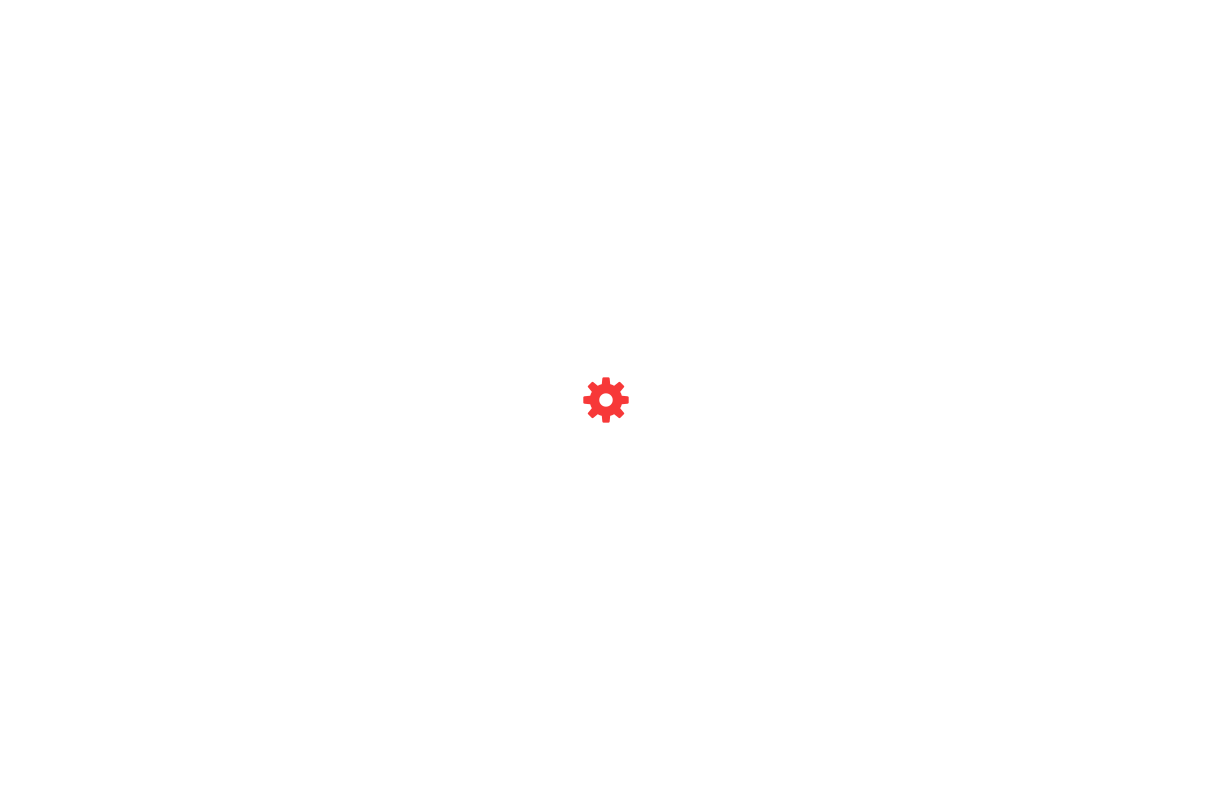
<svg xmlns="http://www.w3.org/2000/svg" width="1212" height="812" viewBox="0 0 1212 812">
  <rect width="100%" height="100%" fill="#fff"/>
  <image x="583" y="377" width="46" height="46" href="images/1.png"/>
</svg>
